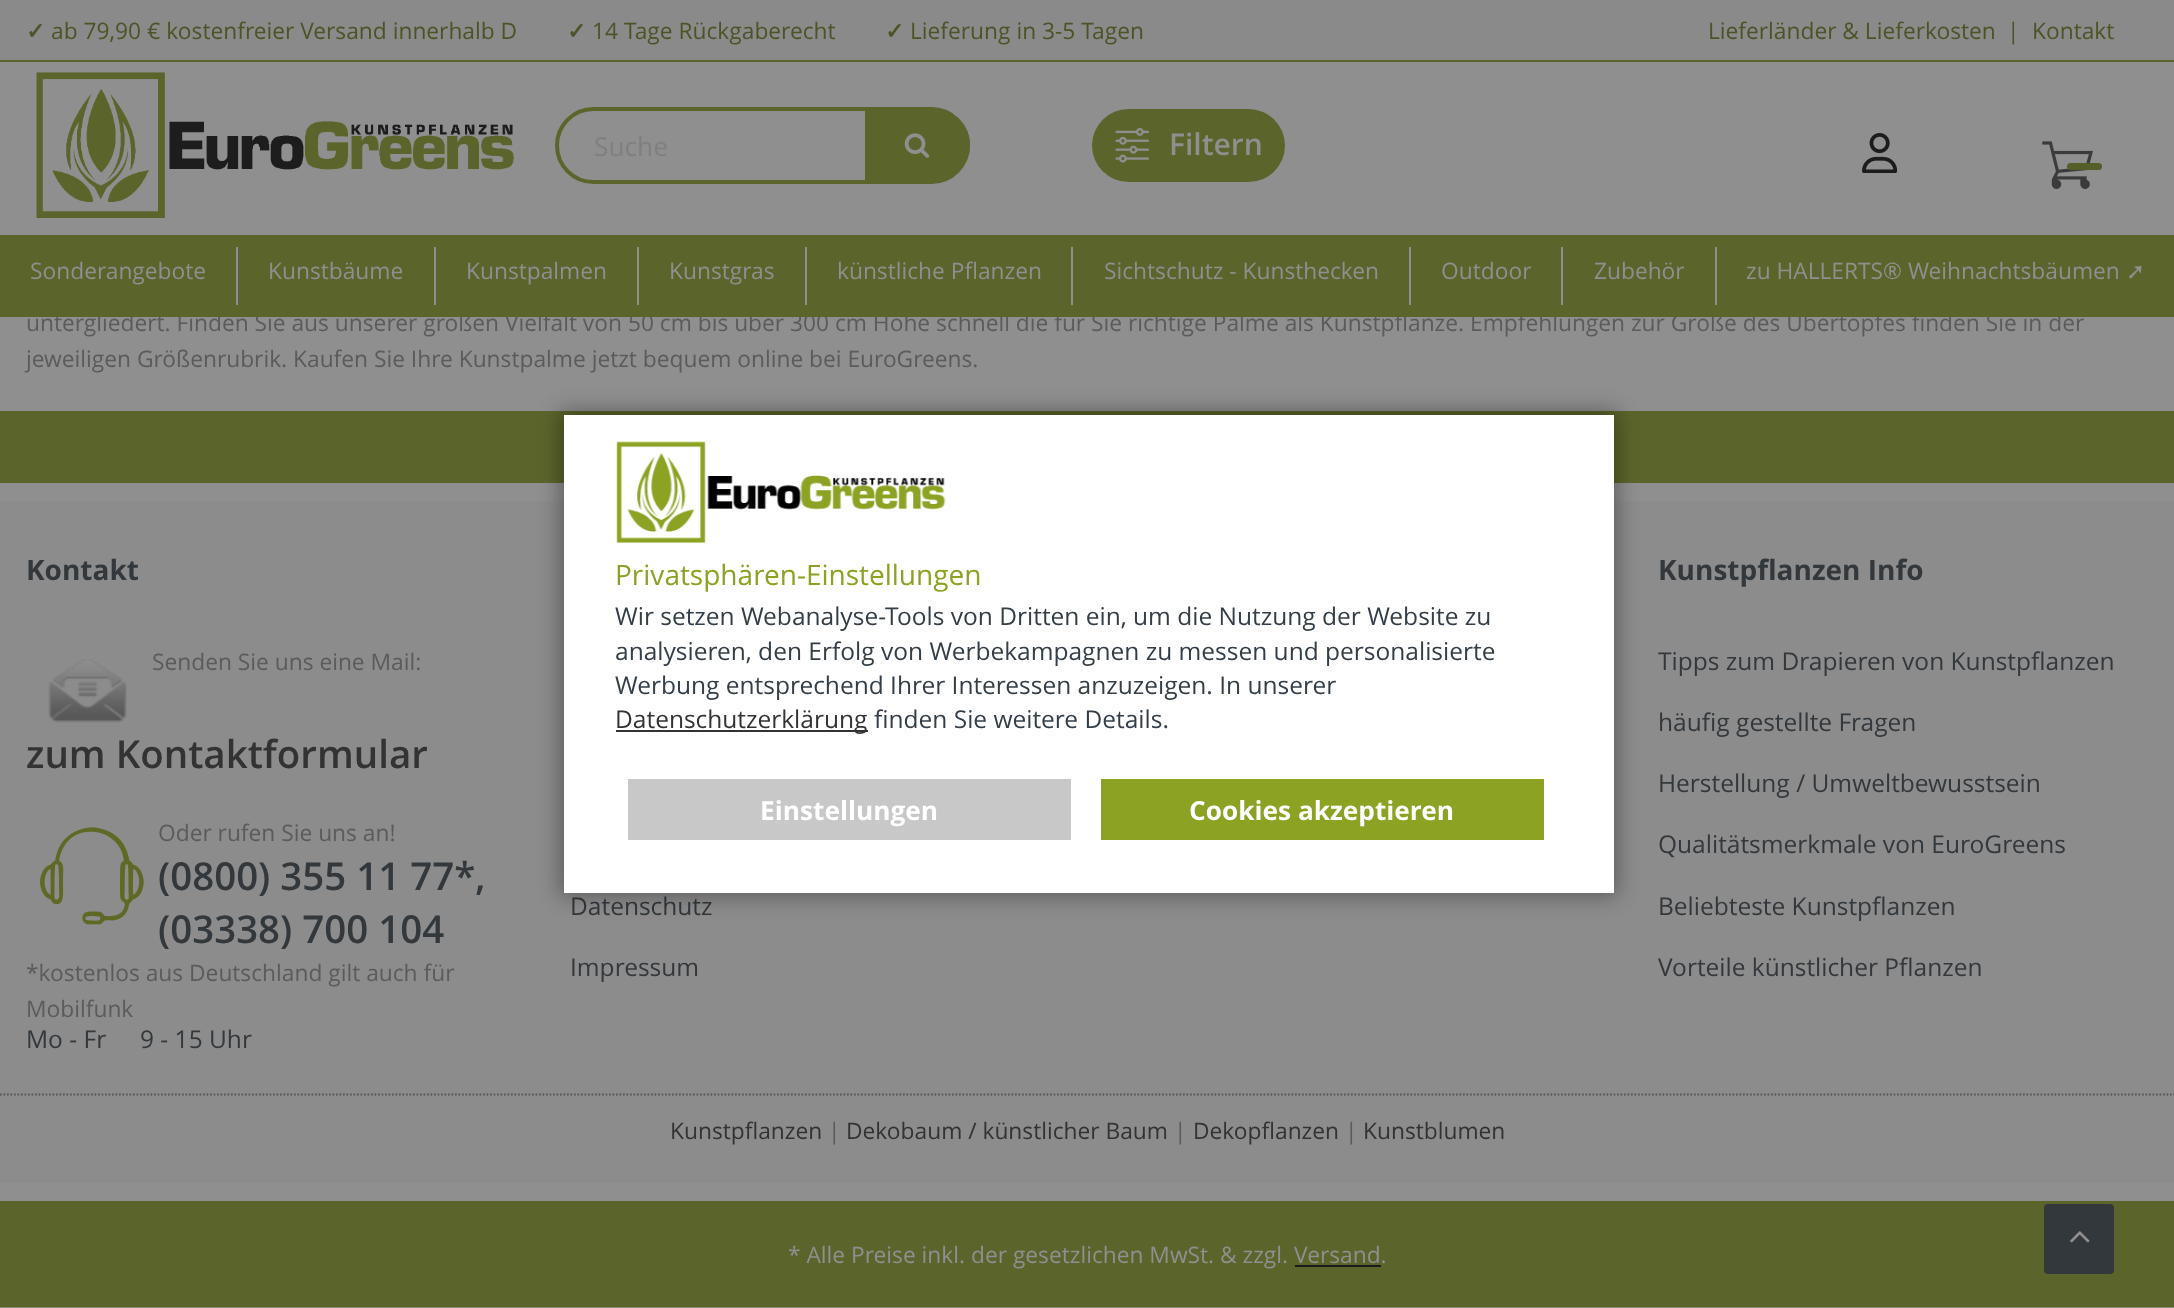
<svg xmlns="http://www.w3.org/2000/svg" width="2174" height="1308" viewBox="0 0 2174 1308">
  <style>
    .t1 { font: bold 22.75px DejaVu Sans; fill: #4c5427; }
    .t2 { font: 22.75px Open Sans; fill: #4c5427; }
    .t3 { font: 26.25px Open Sans; fill: #7f7f7f; }
    .t4 { font: 600 30px Open Sans; fill: #8f8f8f; }
    .t5 { font: 22.75px Open Sans; fill: #5b5b5b; }
    .t6 { font: 22.75px Open Sans; fill: #8f8f8f; }
    .t7 { font: 22.75px DejaVu Sans; fill: #8f8f8f; }
    .t8 { font: bold 28px Open Sans; fill: #33383c; }
    .t9 { font: 600 38.5px Open Sans; fill: #333; }
    .t10 { font: 600 38.5px Open Sans; fill: #33383c; }
    .t11 { font: 24.5px Open Sans; fill: #33383c; }
    .t12 { font: 22.75px Open Sans; fill: #333; }
    .t13 { font: 28px Open Sans; fill: #8ba222; }
    .t14 { font: 24.5px Open Sans; fill: #333e48; }
    .t15 { font: 24.5px Open Sans; fill: #333; }
    .t16 { font: bold 26.25px Open Sans; fill: #fff; }
  </style>
  <rect width="100%" height="100%" fill="#8f8f8f"/>
  <rect x="0" y="0" width="2174" height="60" fill="#8a8a8a"/>
  <rect x="0" y="60" width="2174" height="2" fill="#5b652b"/>
  <text x="26" y="39" class="t1">✓</text>
  <text x="51" y="39" class="t2">ab 79,90 € kostenfreier Versand innerhalb D</text>
  <text x="567" y="39" class="t1">✓</text>
  <text x="592" y="39" class="t2">14 Tage Rückgaberecht</text>
  <text x="885" y="39" class="t1">✓</text>
  <text x="910" y="39" class="t2">Lieferung in 3-5 Tagen</text>
  <text x="1708" y="39" class="t2">Lieferländer &amp; Lieferkosten</text>
  <text x="2007" y="39" class="t2">|</text>
  <text x="2032" y="39" class="t2">Kontakt</text>
  <image x="36" y="72" width="478" height="146" href="images/1.png"/>
  <rect x="557" y="109" width="411" height="73" rx="36.5" fill="none" stroke="#5b652b" stroke-width="4"/>
  <text x="594" y="156" class="t3">Suche</text>
  <path d="M865 110H935C954.5 110 970 125.5 970 145C970 164.5 954.5 180 935 180H865Z" fill="#5b652b"/>
  <image x="904" y="133" width="26" height="25" href="images/2.png"/>
  <rect x="1092" y="109" width="193" height="73" rx="36.5" fill="#5b652b"/>
  <image x="1115" y="128" width="34" height="35" href="images/3.png"/>
  <text x="1169" y="155" class="t4">Filtern</text>
  <image x="1862" y="133" width="35" height="40" href="images/4.png"/>
  <image x="2042" y="141" width="51" height="48" href="images/5.png"/>
  <rect x="2067" y="163" width="35" height="7" rx="3.5" fill="#545e29"/>
  <text x="26" y="331" class="t5">untergliedert. Finden Sie aus unserer großen Vielfalt von 50 cm bis über 300 cm Höhe schnell die für Sie richtige Palme als Kunstpflanze. Empfehlungen zur Größe des Übertopfes finden Sie in der</text>
  <rect x="0" y="235" width="2174" height="82" fill="#5b652b"/>
  <rect x="236" y="247" width="2" height="58" fill="#8f8f8f"/>
  <text x="30" y="279" class="t6">Sonderangebote</text>
  <rect x="434" y="247" width="2" height="58" fill="#8f8f8f"/>
  <text x="268" y="279" class="t6">Kunstbäume</text>
  <rect x="637" y="247" width="2" height="58" fill="#8f8f8f"/>
  <text x="466" y="279" class="t6">Kunstpalmen</text>
  <rect x="805" y="247" width="2" height="58" fill="#8f8f8f"/>
  <text x="669" y="279" class="t6">Kunstgras</text>
  <rect x="1071" y="247" width="2" height="58" fill="#8f8f8f"/>
  <text x="837" y="279" class="t6">künstliche Pflanzen</text>
  <rect x="1409" y="247" width="2" height="58" fill="#8f8f8f"/>
  <text x="1104" y="279" class="t6">Sichtschutz - Kunsthecken</text>
  <rect x="1561" y="247" width="2" height="58" fill="#8f8f8f"/>
  <text x="1441" y="279" class="t6">Outdoor</text>
  <rect x="1715" y="247" width="2" height="58" fill="#8f8f8f"/>
  <text x="1594" y="279" class="t6">Zubehör</text>
  <text x="1746" y="279" class="t6">zu HALLERTS® Weihnachtsbäumen</text>
  <text x="2126" y="279" class="t7">➚</text>
  <text x="26" y="367" class="t5">jeweiligen Größenrubrik. Kaufen Sie Ihre Kunstpalme jetzt bequem online bei EuroGreens.</text>
  <rect x="0" y="411" width="2174" height="72" fill="#5b652b"/>
  <rect x="0" y="501" width="2174" height="682" fill="#8c8c8c"/>
  <text x="26" y="580" class="t8">Kontakt</text>
  <image x="48" y="659" width="79" height="64" href="images/6.png"/>
  <text x="152" y="670" class="t5">Senden Sie uns eine Mail:</text>
  <text x="26" y="768" class="t9">zum Kontaktformular</text>
  <image x="40" y="827" width="104" height="98" href="images/7.png"/>
  <text x="158" y="841" class="t5">Oder rufen Sie uns an!</text>
  <text x="158" y="890" class="t10">(0800) 355 11 77*,</text>
  <text x="158" y="943" class="t10">(03338) 700 104</text>
  <text x="26" y="981" class="t5">*kostenlos aus Deutschland gilt auch für</text>
  <text x="26" y="1017" class="t5">Mobilfunk</text>
  <text x="26" y="1048" class="t11">Mo - Fr</text>
  <text x="140" y="1048" class="t11">9 - 15 Uhr</text>
  <text x="570" y="915" class="t11">Datenschutz</text>
  <text x="570" y="976" class="t11">Impressum</text>
  <text x="1658" y="580" class="t8">Kunstpflanzen Info</text>
  <text x="1658" y="670" class="t11">Tipps zum Drapieren von Kunstpflanzen</text>
  <text x="1658" y="731" class="t11">häufig gestellte Fragen</text>
  <text x="1658" y="792" class="t11">Herstellung / Umweltbewusstsein</text>
  <text x="1658" y="853" class="t11">Qualitätsmerkmale von EuroGreens</text>
  <text x="1658" y="915" class="t11">Beliebteste Kunstpflanzen</text>
  <text x="1658" y="976" class="t11">Vorteile künstlicher Pflanzen</text>
  <path d="M0 1094.5H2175" fill="none" stroke="#565656" stroke-width="1.8" stroke-dasharray="1.75 1.75"/>
  <text x="670" y="1139" class="t12">Kunstpflanzen</text>
  <text x="828" y="1139" class="t5">|</text>
  <text x="846" y="1139" class="t12">Dekobaum / künstlicher Baum</text>
  <text x="1174" y="1139" class="t5">|</text>
  <text x="1193" y="1139" class="t12">Dekopflanzen</text>
  <text x="1345" y="1139" class="t5">|</text>
  <text x="1363" y="1139" class="t12">Kunstblumen</text>
  <rect x="0" y="1201" width="2174" height="106" fill="#5b652b"/>
  <text x="788" y="1263" class="t6">* Alle Preise inkl. der gesetzlichen MwSt. &amp; zzgl. Versand.</text>
  <rect x="1295" y="1265" width="86" height="2" fill="#1c1c1c"/>
  <rect x="2044" y="1204" width="70" height="70" rx="4" fill="#33383c"/>
  <image x="2070" y="1231" width="20" height="12" href="images/8.png"/>
  <rect x="560" y="411" width="1057" height="485" fill="#00000059" filter="blur(10.5px)"/>
  <rect x="564" y="415" width="1050" height="478" fill="#fff"/>
  <image x="616" y="441" width="330" height="103" href="images/9.png"/>
  <text x="615" y="585" class="t13">Privatsphären-Einstellungen</text>
  <text x="615" y="625" class="t14">Wir setzen Webanalyse-Tools von Dritten ein, um die Nutzung der Website zu</text>
  <text x="615" y="660" class="t14">analysieren, den Erfolg von Werbekampagnen zu messen und personalisierte</text>
  <text x="615" y="694" class="t14">Werbung entsprechend Ihrer Interessen anzuzeigen. In unserer</text>
  <rect x="616" y="730" width="252" height="2" fill="#333"/>
  <text x="615" y="728" class="t15">Datenschutzerklärung</text>
  <text x="874" y="728" class="t14">finden Sie weitere Details.</text>
  <rect x="628" y="779" width="443" height="61" fill="#c8c8c8"/>
  <text x="760" y="820" class="t16">Einstellungen</text>
  <rect x="1101" y="779" width="443" height="61" fill="#8ba222"/>
  <text x="1189" y="820" class="t16">Cookies akzeptieren</text>
</svg>
